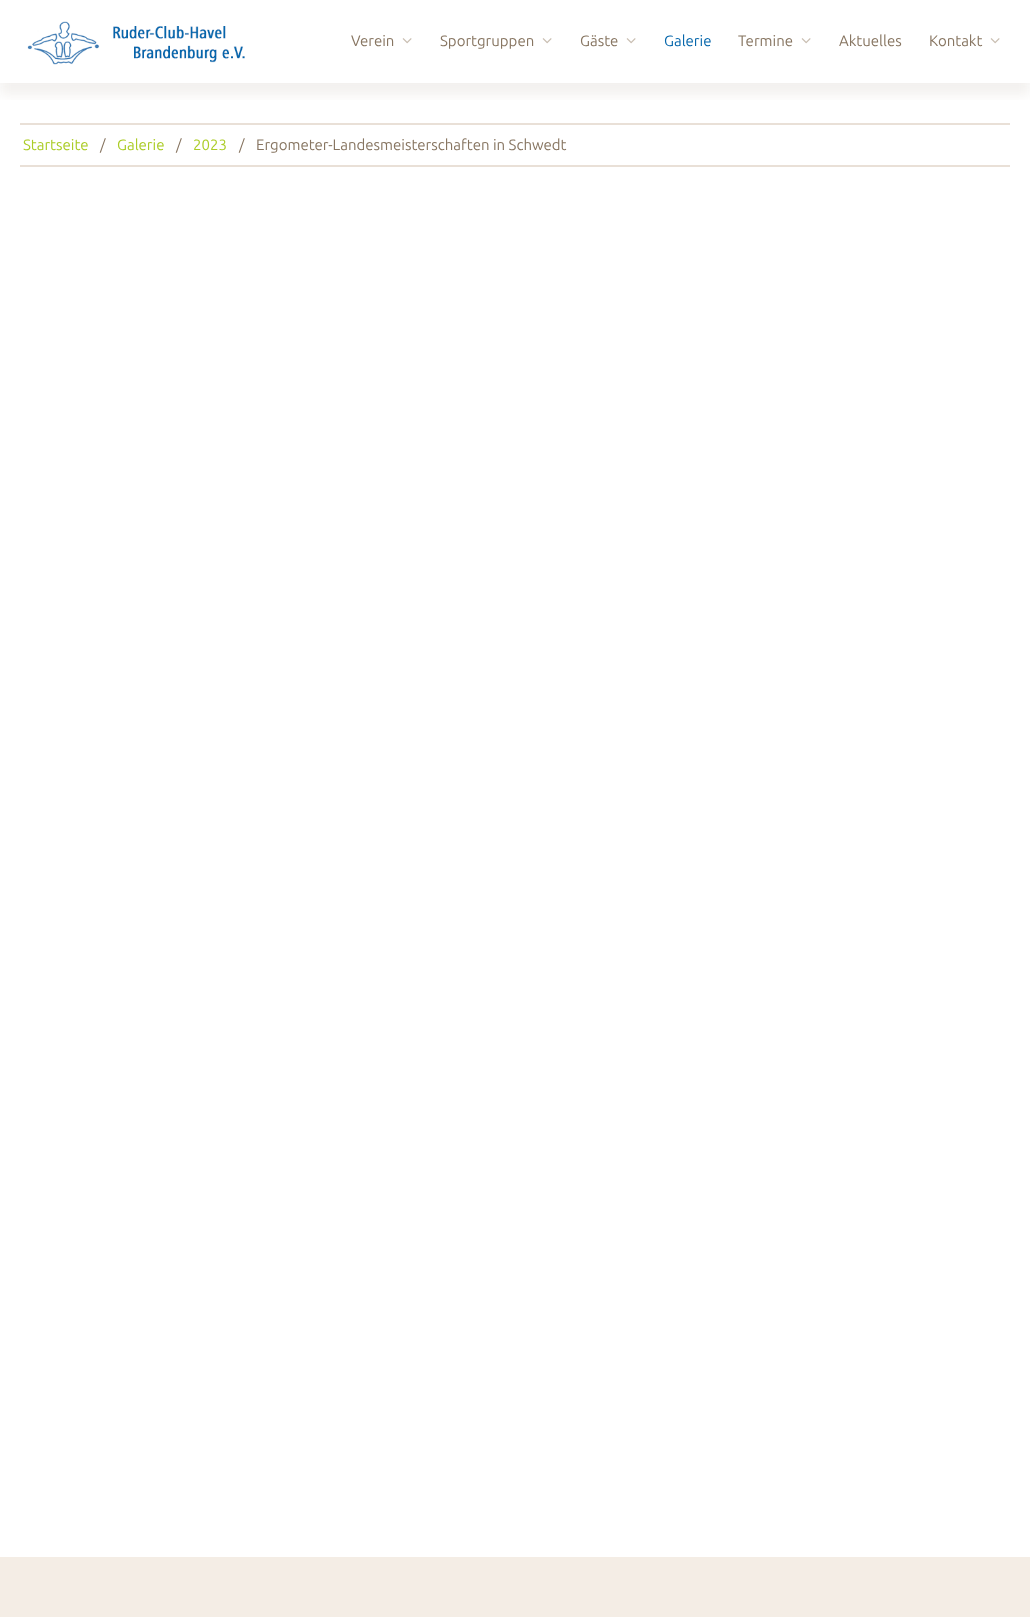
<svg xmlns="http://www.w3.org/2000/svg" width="1030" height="1617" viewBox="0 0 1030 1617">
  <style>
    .t1 { font: 15px Ubuntu; fill: #877561; }
    .t2 { font: 15px Ubuntu; fill: #0566ab; }
    .t3 { font: 15px Ubuntu; fill: #abcc26; }
  </style>
  <defs>
    <clipPath id="clip1"><rect x="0" y="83" width="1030" height="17"/></clipPath>
  </defs>
  <rect width="100%" height="100%" fill="#fff"/>
  <g clip-path="url(#clip1)">
    <rect x="0" y="12" width="1030" height="83" fill="#8775611a" filter="blur(6px)"/>
  </g>
  <image x="27" y="21" width="218" height="44" href="images/1.png"/>
  <text x="351" y="46" class="t1">Verein</text>
  <image x="402" y="38" width="10" height="6" href="images/2.png"/>
  <text x="440" y="46" class="t1">Sportgruppen</text>
  <image x="542" y="38" width="10" height="6" href="images/2.png"/>
  <text x="580" y="46" class="t1">Gäste</text>
  <image x="626" y="38" width="10" height="6" href="images/2.png"/>
  <text x="664" y="46" class="t2">Galerie</text>
  <text x="738" y="46" class="t1">Termine</text>
  <image x="801" y="38" width="10" height="6" href="images/2.png"/>
  <text x="839" y="46" class="t1">Aktuelles</text>
  <text x="929" y="46" class="t1">Kontakt</text>
  <image x="990" y="38" width="10" height="6" href="images/2.png"/>
  <rect x="20" y="123" width="990" height="2" fill="#e9e0d7"/>
  <rect x="20" y="165" width="990" height="2" fill="#e9e0d7"/>
  <text x="23" y="150" class="t3">Startseite</text>
  <text x="100" y="150" class="t1">/</text>
  <text x="117" y="150" class="t3">Galerie</text>
  <text x="176" y="150" class="t1">/</text>
  <text x="193" y="150" class="t3">2023</text>
  <text x="239" y="150" class="t1">/</text>
  <text x="256" y="150" class="t1">Ergometer-Landesmeisterschaften in Schwedt</text>
  <rect x="0" y="1557" width="1030" height="60" fill="#f4ede5"/>
</svg>
